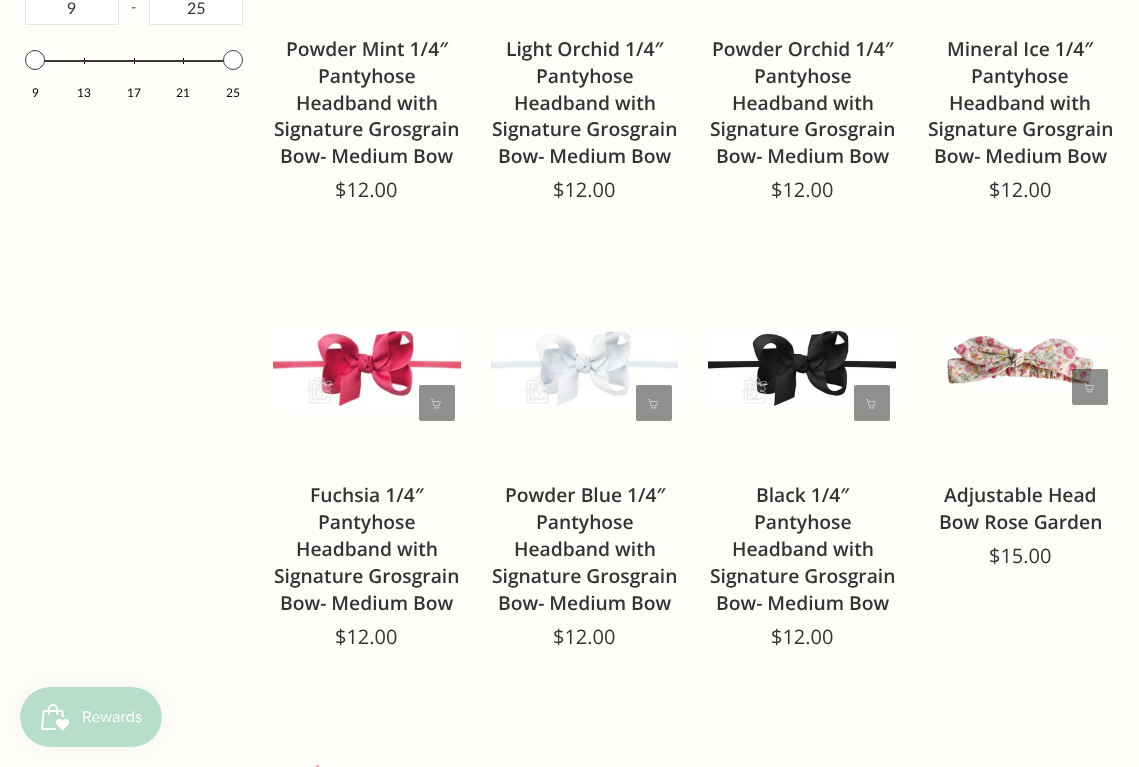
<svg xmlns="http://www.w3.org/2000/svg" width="1139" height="767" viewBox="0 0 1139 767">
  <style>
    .t1 { font: 16px Lato; fill: #333; }
    .t2 { font: 14px Lato; fill: #403b37; }
    .t3 { font: 12px Lato; fill: #000; }
    .t4 { font: 600 19.25px Open Sans; fill: #333; }
    .t5 { font: 20px Open Sans; fill: #333; }
  </style>
  <rect width="100%" height="100%" fill="#fffefb"/>
  <rect x="25.5" y="-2.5" width="93" height="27" rx="1.5" fill="#fff" stroke="#e3e3e3"/>
  <text x="67" y="14" class="t1">9</text>
  <text x="131" y="12" class="t2">-</text>
  <rect x="149.5" y="-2.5" width="93" height="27" rx="1.5" fill="#fff" stroke="#e3e3e3"/>
  <text x="187" y="14" class="t1">25</text>
  <rect x="84" y="58" width="1" height="6" fill="#000"/>
  <rect x="134" y="58" width="1" height="6" fill="#000"/>
  <rect x="183" y="58" width="1" height="6" fill="#000"/>
  <rect x="44" y="60" width="180" height="2" fill="#403b37"/>
  <circle cx="35" cy="60" r="9.5" fill="#fff" stroke="#3d4246"/>
  <circle cx="233" cy="60" r="9.5" fill="#fff" stroke="#3d4246"/>
  <text x="32" y="97" class="t3">9</text>
  <text x="77" y="97" class="t3">13</text>
  <text x="127" y="97" class="t3">17</text>
  <text x="176" y="97" class="t3">21</text>
  <text x="226" y="97" class="t3">25</text>
  <text x="286" y="56" class="t4">Powder Mint 1/4″</text>
  <text x="318" y="83" class="t4">Pantyhose</text>
  <text x="296" y="110" class="t4">Headband with</text>
  <text x="274" y="136" class="t4">Signature Grosgrain</text>
  <text x="280" y="163" class="t4">Bow- Medium Bow</text>
  <text x="335" y="197" class="t5">$12.00</text>
  <text x="506" y="56" class="t4">Light Orchid 1/4″</text>
  <text x="536" y="83" class="t4">Pantyhose</text>
  <text x="514" y="110" class="t4">Headband with</text>
  <text x="492" y="136" class="t4">Signature Grosgrain</text>
  <text x="498" y="163" class="t4">Bow- Medium Bow</text>
  <text x="553" y="197" class="t5">$12.00</text>
  <text x="712" y="56" class="t4">Powder Orchid 1/4″</text>
  <text x="754" y="83" class="t4">Pantyhose</text>
  <text x="732" y="110" class="t4">Headband with</text>
  <text x="710" y="136" class="t4">Signature Grosgrain</text>
  <text x="716" y="163" class="t4">Bow- Medium Bow</text>
  <text x="771" y="197" class="t5">$12.00</text>
  <text x="947" y="56" class="t4">Mineral Ice 1/4″</text>
  <text x="971" y="83" class="t4">Pantyhose</text>
  <text x="949" y="110" class="t4">Headband with</text>
  <text x="928" y="136" class="t4">Signature Grosgrain</text>
  <text x="934" y="163" class="t4">Bow- Medium Bow</text>
  <text x="989" y="197" class="t5">$12.00</text>
  <image x="273" y="329" width="188" height="82" href="images/2.png"/>
  <rect x="419" y="385" width="36" height="36" rx="2" fill="#22222280"/>
  <image x="431" y="399" width="10" height="10" href="images/1.png"/>
  <text x="310" y="502" class="t4">Fuchsia 1/4″</text>
  <text x="318" y="529" class="t4">Pantyhose</text>
  <text x="296" y="556" class="t4">Headband with</text>
  <text x="274" y="583" class="t4">Signature Grosgrain</text>
  <text x="280" y="610" class="t4">Bow- Medium Bow</text>
  <text x="335" y="644" class="t5">$12.00</text>
  <image x="491" y="331" width="187" height="76" href="images/4.png"/>
  <rect x="636" y="385" width="36" height="36" rx="2" fill="#22222280"/>
  <image x="648" y="399" width="10" height="10" href="images/3.png"/>
  <text x="505" y="502" class="t4">Powder Blue 1/4″</text>
  <text x="536" y="529" class="t4">Pantyhose</text>
  <text x="514" y="556" class="t4">Headband with</text>
  <text x="492" y="583" class="t4">Signature Grosgrain</text>
  <text x="498" y="610" class="t4">Bow- Medium Bow</text>
  <text x="553" y="644" class="t5">$12.00</text>
  <image x="708" y="330" width="188" height="76" href="images/6.png"/>
  <rect x="854" y="385" width="36" height="36" rx="2" fill="#22222280"/>
  <image x="866" y="399" width="10" height="10" href="images/5.png"/>
  <text x="756" y="502" class="t4">Black 1/4″</text>
  <text x="754" y="529" class="t4">Pantyhose</text>
  <text x="732" y="556" class="t4">Headband with</text>
  <text x="710" y="583" class="t4">Signature Grosgrain</text>
  <text x="716" y="610" class="t4">Bow- Medium Bow</text>
  <text x="771" y="644" class="t5">$12.00</text>
  <image x="946" y="335" width="148" height="52" href="images/8.png"/>
  <rect x="1072" y="369" width="36" height="36" rx="2" fill="#22222280"/>
  <image x="1084" y="383" width="10" height="10" href="images/7.png"/>
  <text x="944" y="502" class="t4">Adjustable Head</text>
  <text x="939" y="529" class="t4">Bow Rose Garden</text>
  <text x="989" y="563" class="t5">$15.00</text>
  <image x="312" y="764" width="8" height="3" href="images/9.png"/>
  <rect x="20" y="687" width="142" height="60" rx="30" fill="#0000000d" filter="blur(12.5px)"/>
  <image x="20" y="687" width="142" height="60" href="images/10.png"/>
</svg>
